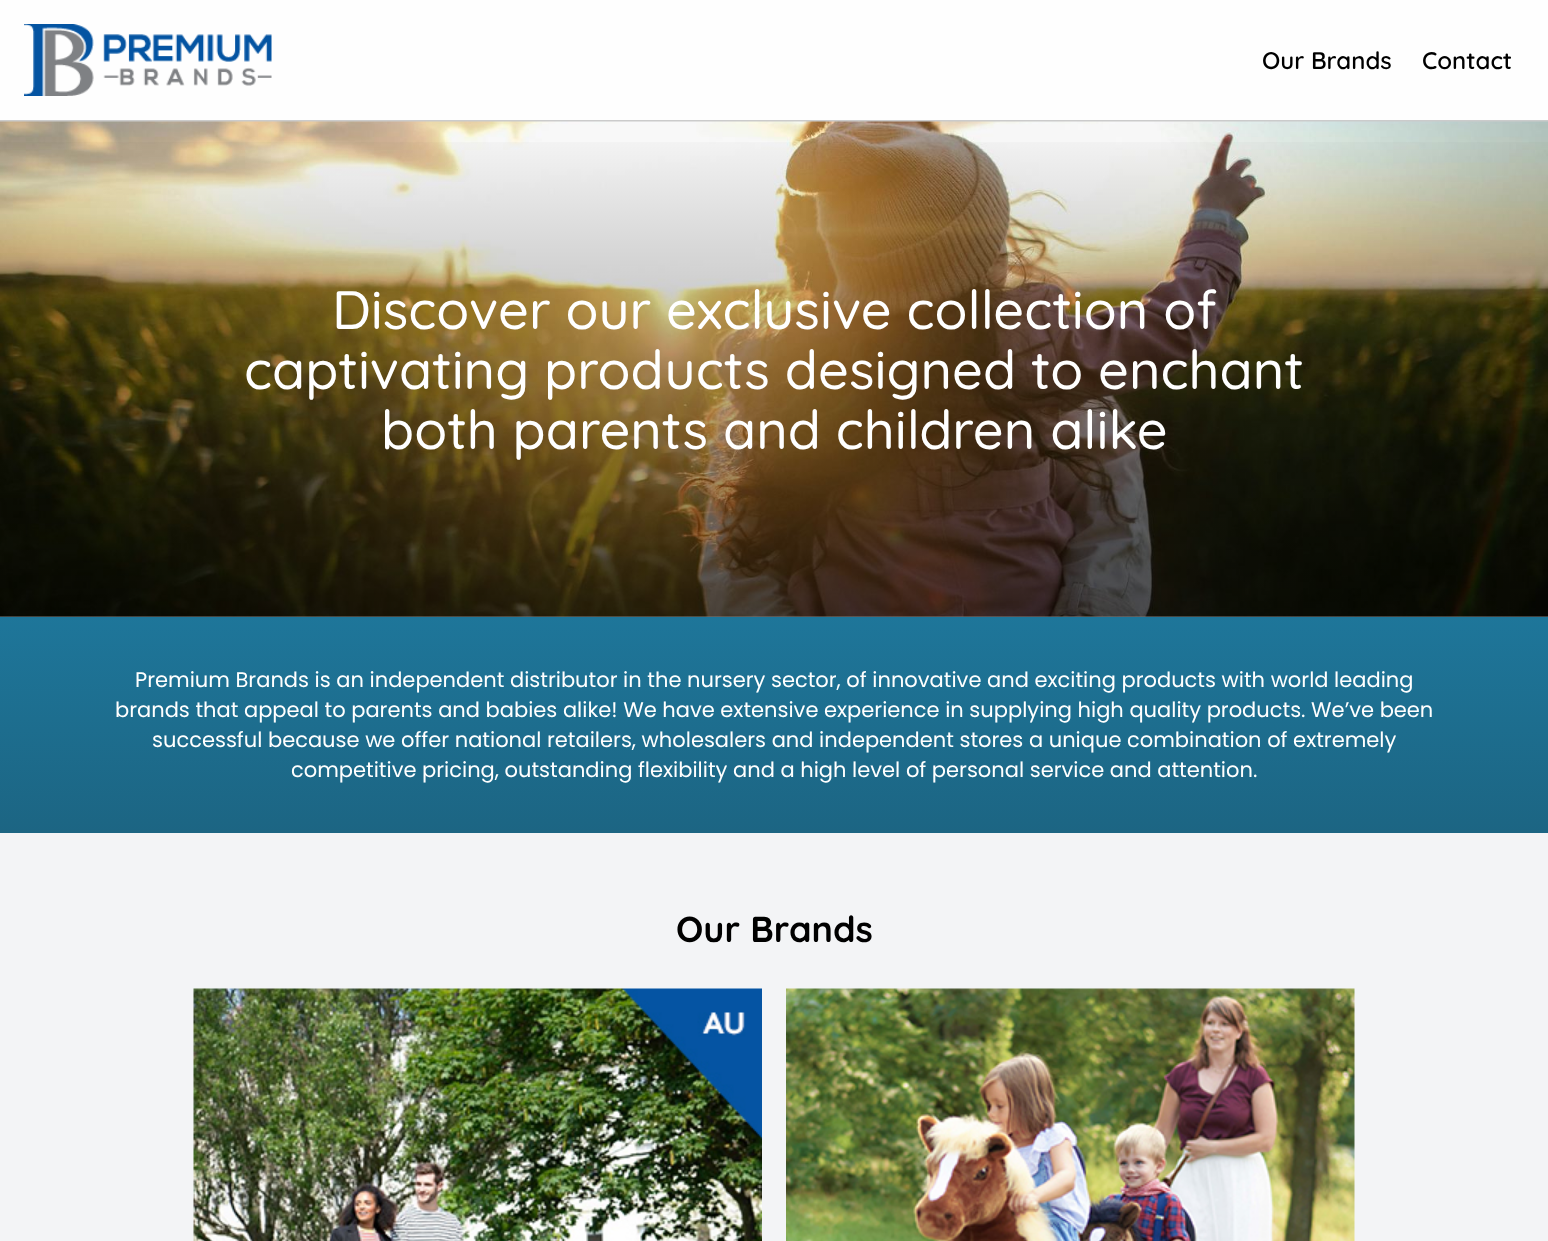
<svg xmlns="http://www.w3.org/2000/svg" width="1548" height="1241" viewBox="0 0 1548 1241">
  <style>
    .t1 { font: 600 24px Quicksand; fill: #000; }
    .t2 { font: 500 54px Quicksand; fill: #fff; }
    .t3 { font: 21px Poppins; fill: #fff; }
    .t4 { font: bold 36px Quicksand; fill: #000; }
  </style>
  <defs>
    <linearGradient id="g1" gradientUnits="userSpaceOnUse" x1="774" y1="121" x2="774" y2="617"><stop offset="0" stop-color="#000" stop-opacity="0"/><stop offset="1" stop-color="#000" stop-opacity="0.5"/></linearGradient>
    <linearGradient id="g2" gradientUnits="userSpaceOnUse" x1="774" y1="616" x2="774" y2="833"><stop offset="0" stop-color="#1e769a"/><stop offset="1" stop-color="#1c6583"/></linearGradient>
  </defs>
  <rect width="100%" height="100%" fill="#f3f4f6"/>
  <rect x="0" y="0" width="1548" height="120" fill="#fefefe"/>
  <rect x="0" y="120" width="1548" height="2" fill="#cbcbcb"/>
  <image x="24" y="24" width="248" height="72" href="images/1.png"/>
  <text x="1262" y="69" class="t1">Our Brands</text>
  <text x="1422" y="69" class="t1">Contact</text>
  <image x="0" y="121" width="1548" height="496" href="images/2.png"/>
  <rect x="0" y="142" width="1548" height="475" fill="url(#g1)"/>
  <text x="332" y="329" class="t2">Discover our exclusive collection of</text>
  <text x="244" y="389" class="t2">captivating products designed to enchant</text>
  <text x="381" y="449" class="t2">both parents and children alike</text>
  <rect x="0" y="617" width="1548" height="216" fill="url(#g2)"/>
  <text x="135" y="687" class="t3">Premium Brands is an independent distributor in the nursery sector, of innovative and exciting products with world leading</text>
  <text x="115" y="717" class="t3">brands that appeal to parents and babies alike! We have extensive experience in supplying high quality products. We’ve been</text>
  <text x="152" y="747" class="t3">successful because we offer national retailers, wholesalers and independent stores a unique combination of extremely</text>
  <text x="291" y="777" class="t3">competitive pricing, outstanding flexibility and a high level of personal service and attention.</text>
  <text x="676" y="942" class="t4">Our Brands</text>
  <image x="193" y="988" width="569" height="253" href="images/3.png"/>
  <image x="786" y="988" width="569" height="253" href="images/4.png"/>
</svg>
